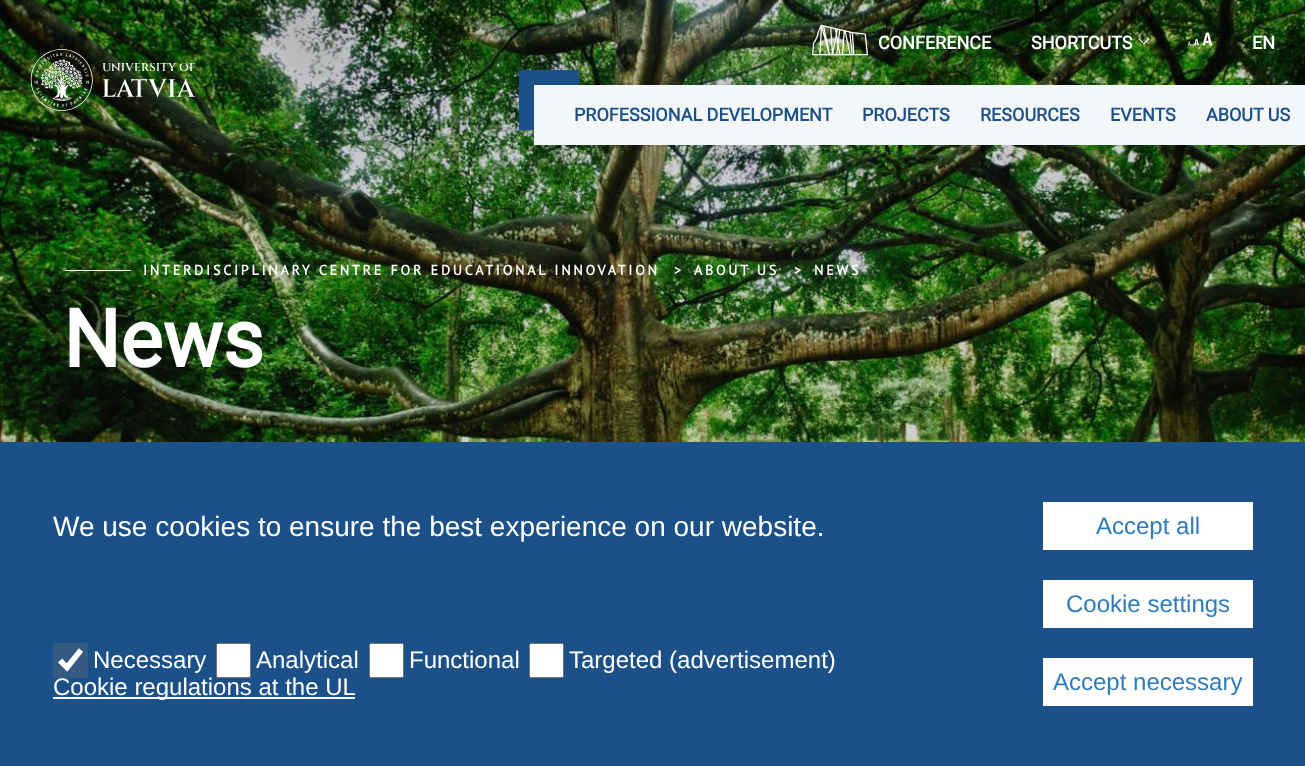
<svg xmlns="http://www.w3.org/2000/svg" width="1305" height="766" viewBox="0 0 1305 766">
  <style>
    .t1 { font: bold 18px Roboto; fill: #fff; }
    .t2 { font: bold 18px Roboto; fill: #1b5089; }
    .t3 { font: bold 14px PT Sans; letter-spacing: 2.8px; fill: #fff; }
    .t4 { font: bold 80px Roboto; fill: #fff; }
    .t5 { font: 28px Liberation Sans; fill: #fff; }
    .t6 { font: 24px Liberation Sans; fill: #fff; }
    .t7 { font: 24px Liberation Sans; fill: #2c7cbf; }
  </style>
  <rect width="100%" height="100%" fill="#fff"/>
  <image x="0" y="0" width="1305" height="442" href="images/4.png"/>
  <image x="30" y="49" width="166" height="62" href="images/1.png"/>
  <image x="812" y="24" width="56" height="32" href="images/2.png"/>
  <text x="878" y="49" class="t1">CONFERENCE</text>
  <text x="1031" y="49" class="t1">SHORTCUTS</text>
  <path d="M1149 38L1149.5 39L1144 44.5L1143 44Z" fill="#fff"/>
  <path d="M1139 38L1144.5 44L1144 44.5L1138.5 39Z" fill="#fff"/>
  <image x="1188" y="32" width="24" height="14" href="images/3.png"/>
  <text x="1252" y="49" class="t1">EN</text>
  <rect x="519" y="70" width="60" height="60" fill="#1b5089"/>
  <rect x="534" y="85" width="771" height="60" fill="#f4f7fa"/>
  <text x="574" y="121" class="t2">PROFESSIONAL DEVELOPMENT</text>
  <text x="862" y="121" class="t2">PROJECTS</text>
  <text x="980" y="121" class="t2">RESOURCES</text>
  <text x="1110" y="121" class="t2">EVENTS</text>
  <text x="1206" y="121" class="t2">ABOUT US</text>
  <rect x="65" y="270" width="66" height="1" fill="#fff"/>
  <text x="143" y="275" class="t3">INTERDISCIPLINARY CENTRE FOR EDUCATIONAL INNOVATION</text>
  <text x="674" y="275" class="t3">&gt;</text>
  <text x="694" y="275" class="t3">ABOUT US</text>
  <text x="794" y="275" class="t3">&gt;</text>
  <text x="814" y="275" class="t3">NEWS</text>
  <text x="63" y="367" class="t4">News</text>
  <rect x="0" y="442" width="1305" height="324" fill="#1b5089"/>
  <text x="53" y="536" class="t5">We use cookies to ensure the best experience on our website.</text>
  <rect x="53" y="643" width="35" height="35" rx="2" fill="#365b83"/>
  <path d="M60 660.5L67 667.5L81 650" fill="none" stroke="#fff" stroke-width="5.6"/>
  <text x="93" y="668" class="t6">Necessary</text>
  <rect x="216.5" y="643.5" width="34" height="34" rx="1.5" fill="#fff" stroke="#767676"/>
  <text x="256" y="668" class="t6">Analytical</text>
  <rect x="369.5" y="643.5" width="34" height="34" rx="1.5" fill="#fff" stroke="#767676"/>
  <text x="409" y="668" class="t6">Functional</text>
  <rect x="529.5" y="643.5" width="34" height="34" rx="1.5" fill="#fff" stroke="#767676"/>
  <text x="569" y="668" class="t6">Targeted (advertisement)</text>
  <rect x="53" y="697" width="302" height="2" fill="#fff"/>
  <text x="53" y="695" class="t6">Cookie regulations at the UL</text>
  <rect x="1043" y="502" width="210" height="48" fill="#fff"/>
  <text x="1096" y="534" class="t7">Accept all</text>
  <rect x="1043" y="580" width="210" height="48" fill="#fff"/>
  <text x="1066" y="612" class="t7">Cookie settings</text>
  <rect x="1043" y="658" width="210" height="48" fill="#fff"/>
  <text x="1053" y="690" class="t7">Accept necessary</text>
</svg>
